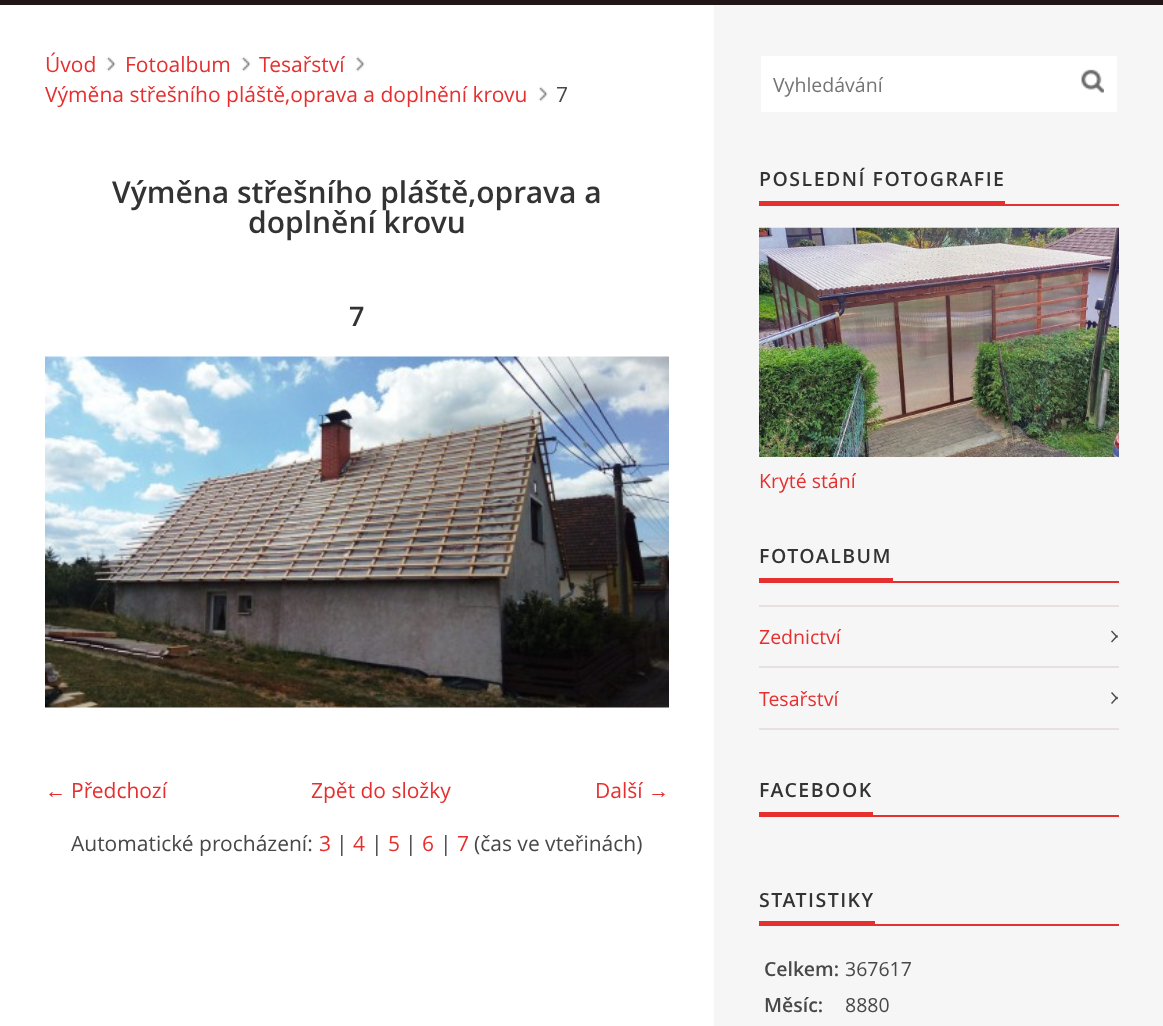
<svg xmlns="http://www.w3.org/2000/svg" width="1163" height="1026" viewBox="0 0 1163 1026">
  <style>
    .t1 { font: 21px Open Sans; fill: #e62f2f; }
    .t2 { font: 21px Open Sans; fill: #484848; }
    .t3 { font: 600 30px Open Sans; fill: #333; }
    .t4 { font: 600 27px Open Sans; fill: #333; }
    .t5 { font: 21px Liberation Serif; fill: #e62f2f; }
    .t6 { font: 19.5px Open Sans; fill: #757575; }
    .t7 { font: 600 19.5px Open Sans; letter-spacing: 1.5px; fill: #333; }
    .t8 { font: 19.5px Open Sans; fill: #e62f2f; }
    .t9 { font: 600 19.5px Open Sans; fill: #484848; }
    .t10 { font: 19.5px Open Sans; fill: #484848; }
  </style>
  <rect width="100%" height="100%" fill="#fff"/>
  <rect x="0" y="0" width="1163" height="5" fill="#211515"/>
  <image x="106" y="56" width="10" height="16" href="images/1.png"/>
  <text x="45" y="72" class="t1">Úvod</text>
  <image x="241" y="56" width="10" height="16" href="images/1.png"/>
  <text x="125" y="72" class="t1">Fotoalbum</text>
  <image x="355" y="56" width="10" height="16" href="images/2.png"/>
  <text x="259" y="72" class="t1">Tesařství</text>
  <image x="538" y="86" width="10" height="16" href="images/2.png"/>
  <text x="45" y="102" class="t1">Výměna střešního pláště,oprava a doplnění krovu</text>
  <text x="556" y="102" class="t2">7</text>
  <text x="112" y="203" class="t3">Výměna střešního pláště,oprava a</text>
  <text x="248" y="233" class="t3">doplnění krovu</text>
  <text x="349" y="326" class="t4">7</text>
  <image x="45" y="356" width="624" height="352" href="images/3.png"/>
  <text x="45" y="798" class="t5">←</text>
  <text x="71" y="798" class="t1">Předchozí</text>
  <text x="311" y="798" class="t1">Zpět do složky</text>
  <text x="595" y="798" class="t1">Další</text>
  <text x="648" y="798" class="t5">→</text>
  <text x="71" y="851" class="t2">Automatické procházení:</text>
  <text x="319" y="851" class="t1">3</text>
  <text x="336" y="851" class="t2">|</text>
  <text x="353" y="851" class="t1">4</text>
  <text x="371" y="851" class="t2">|</text>
  <text x="388" y="851" class="t1">5</text>
  <text x="405" y="851" class="t2">|</text>
  <text x="422" y="851" class="t1">6</text>
  <text x="440" y="851" class="t2">|</text>
  <text x="457" y="851" class="t1">7</text>
  <text x="474" y="851" class="t2">(čas ve vteřinách)</text>
  <rect x="714" y="5" width="449" height="1021" fill="#f6f6f6"/>
  <rect x="761" y="56" width="356" height="56" fill="#fff"/>
  <text x="773" y="92" class="t6">Vyhledávání</text>
  <image x="1081" y="69" width="23" height="24" href="images/4.png"/>
  <text x="759" y="186" class="t7">POSLEDNÍ FOTOGRAFIE</text>
  <rect x="759" y="201" width="246" height="3" fill="#e62f2f"/>
  <rect x="759" y="204" width="360" height="2" fill="#e62f2f"/>
  <image x="759" y="227" width="360" height="230" href="images/5.png"/>
  <text x="759" y="488" class="t8">Kryté stání</text>
  <text x="759" y="563" class="t7">FOTOALBUM</text>
  <rect x="759" y="578" width="134" height="3" fill="#e62f2f"/>
  <rect x="759" y="581" width="360" height="2" fill="#e62f2f"/>
  <rect x="759" y="605" width="360" height="2" fill="#e8dfdf"/>
  <rect x="759" y="666" width="360" height="2" fill="#e8dfdf"/>
  <text x="759" y="644" class="t8">Zednictví</text>
  <path d="M1112 630.5L1118 637L1117 638L1111 631.5Z" fill="#484848"/>
  <path d="M1111 641.5L1117 635L1118 636L1112 642.5Z" fill="#484848"/>
  <rect x="759" y="728" width="360" height="2" fill="#e8dfdf"/>
  <text x="759" y="706" class="t8">Tesařství</text>
  <path d="M1112 692L1118 698.5L1117 699.5L1111 693Z" fill="#484848"/>
  <path d="M1111 703L1117 696.5L1118 697.5L1112 704Z" fill="#484848"/>
  <text x="759" y="797" class="t7">FACEBOOK</text>
  <rect x="759" y="812" width="114" height="3" fill="#e62f2f"/>
  <rect x="759" y="815" width="360" height="2" fill="#e62f2f"/>
  <text x="759" y="907" class="t7">STATISTIKY</text>
  <rect x="759" y="921" width="116" height="3" fill="#e62f2f"/>
  <rect x="759" y="924" width="360" height="2" fill="#e62f2f"/>
  <text x="764" y="976" class="t9">Celkem:</text>
  <text x="845" y="976" class="t10">367617</text>
  <text x="764" y="1012" class="t9">Měsíc:</text>
  <text x="845" y="1012" class="t10">8880</text>
</svg>
